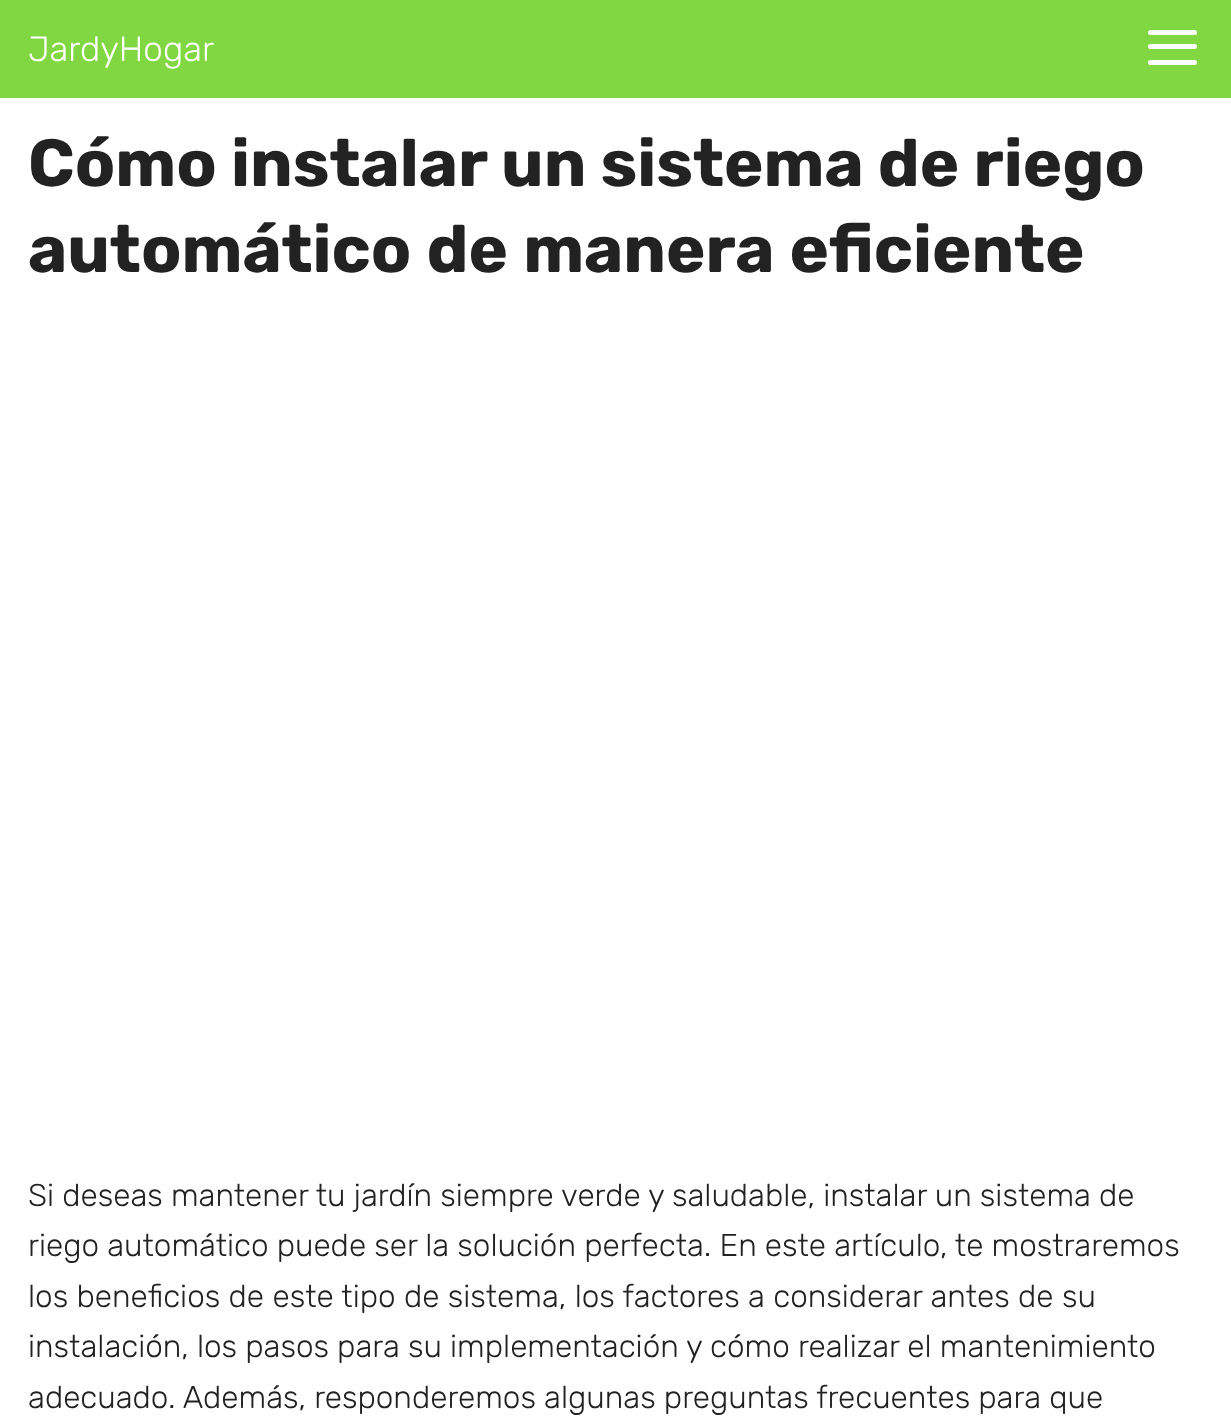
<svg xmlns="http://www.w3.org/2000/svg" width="1231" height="1420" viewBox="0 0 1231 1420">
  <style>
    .t1 { font: 300 35px Rubik; fill: #fff; }
    .t2 { font: bold 66.5px Rubik; fill: #222; }
    .t3 { font: 300 31.5px Rubik; fill: #222; }
  </style>
  <rect width="100%" height="100%" fill="#fff"/>
  <rect x="0" y="0" width="1231" height="98" fill="#81d742"/>
  <text x="28" y="61" class="t1">JardyHogar</text>
  <rect x="1148" y="30" width="49" height="5" rx="2.5" fill="#fff"/>
  <rect x="1148" y="44" width="49" height="5" rx="2.5" fill="#fff"/>
  <rect x="1148" y="60" width="49" height="5" rx="2.5" fill="#fff"/>
  <text x="28" y="186" class="t2">Cómo instalar un sistema de riego</text>
  <text x="28" y="272" word-spacing="1" class="t2">automático de manera eficiente</text>
  <text x="28" y="1206" class="t3">Si deseas mantener tu jardín siempre verde y saludable, instalar un sistema de</text>
  <text x="28" y="1256" class="t3">riego automático puede ser la solución perfecta. En este artículo, te mostraremos</text>
  <text x="28" y="1307" word-spacing="0.25" class="t3">los beneficios de este tipo de sistema, los factores a considerar antes de su</text>
  <text x="28" y="1357" class="t3">instalación, los pasos para su implementación y cómo realizar el mantenimiento</text>
  <text x="28" y="1408" class="t3">adecuado. Además, responderemos algunas preguntas frecuentes para que</text>
</svg>
